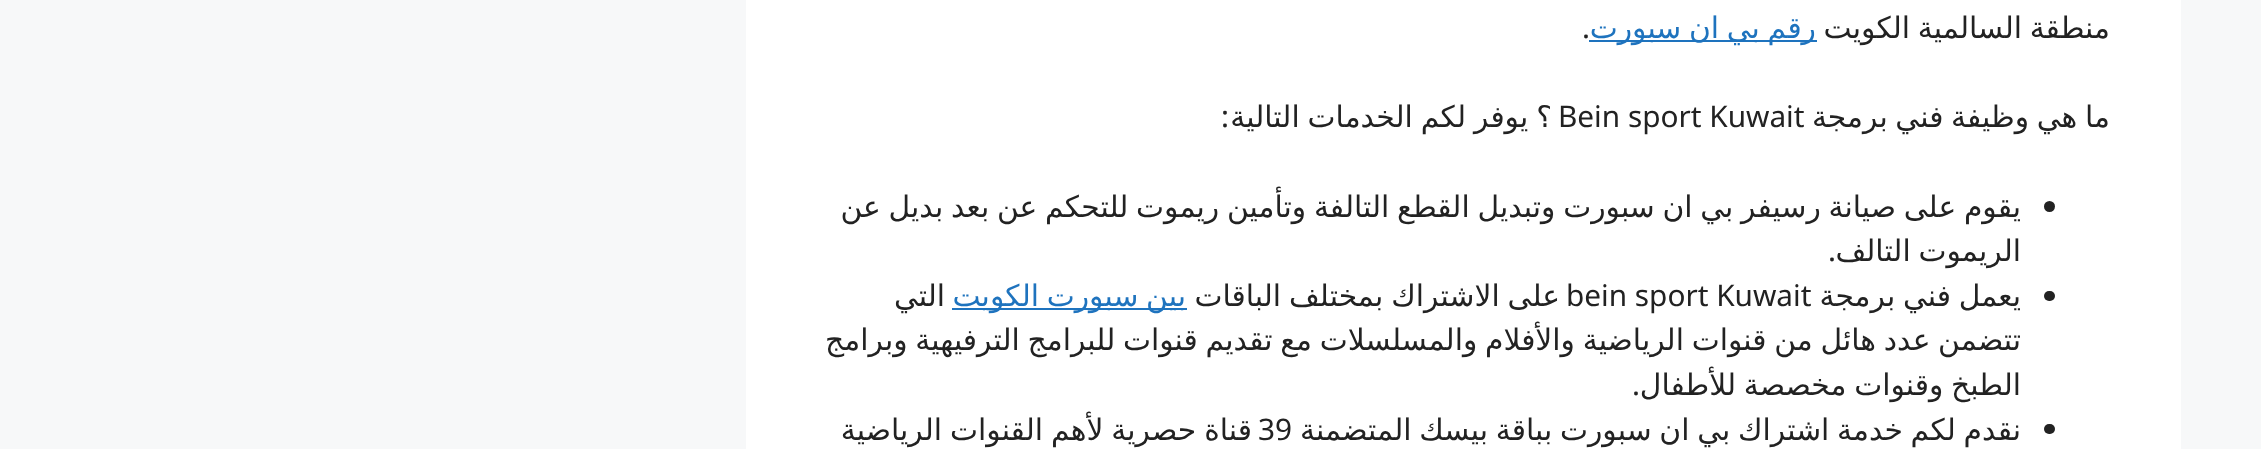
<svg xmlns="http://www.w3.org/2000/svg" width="2261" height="449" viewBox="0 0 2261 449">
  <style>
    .t1 { font: 29.75px DejaVu Sans; direction: rtl; fill: #222; }
    .t2 { font: 29.75px DejaVu Sans; direction: rtl; fill: #1e73be; }
    .t3 { font: 29.75px Noto Sans; fill: #222; }
    .t4 { font: 29.75px Noto Sans; direction: rtl; fill: #222; }
  </style>
  <rect width="100%" height="100%" fill="#f7f8f9"/>
  <rect x="746" y="0" width="1435" height="449" fill="#fff"/>
  <text x="2110" y="38" word-spacing="-1.75" class="t1">منطقة السالمية الكويت</text>
  <rect x="1589" y="40" width="228" height="2" fill="#1e73be"/>
  <text x="1816" y="38" word-spacing="-1.75" class="t2">رقم بي ان سبورت</text>
  <text x="1582" y="38" class="t3">.</text>
  <text x="2110" y="127" word-spacing="-1.75" class="t1">ما هي وظيفة فني برمجة</text>
  <text x="1558" y="127" class="t3">Bein sport Kuwait</text>
  <text x="1552" y="127" word-spacing="-1.5" class="t1">؟ يوفر لكم الخدمات التالية</text>
  <text x="1229" y="127" class="t4">:</text>
  <circle cx="2049.5" cy="206.5" r="5.5" fill="#222"/>
  <text x="2021" y="217" word-spacing="-1.75" class="t1">يقوم على صيانة رسيفر بي ان سبورت وتبديل القطع التالفة وتأمين ريموت للتحكم عن بعد بديل عن</text>
  <text x="2021" y="261" word-spacing="-1.75" class="t1">الريموت التالف</text>
  <text x="1836" y="261" class="t4">.</text>
  <rect x="2044" y="291" width="11" height="10" rx="5" fill="#222"/>
  <text x="2021" y="306" word-spacing="-1.75" class="t1">يعمل فني برمجة</text>
  <text x="1566" y="306" class="t3">bein sport Kuwait</text>
  <text x="1560" y="306" word-spacing="-1.5" class="t1">على الاشتراك بمختلف الباقات</text>
  <rect x="952" y="308" width="235" height="2" fill="#1e73be"/>
  <text x="1186" y="306" word-spacing="-1.75" class="t2">بين سبورت الكويت</text>
  <text x="945" y="306" class="t1">التي</text>
  <text x="2021" y="350" word-spacing="-1.75" class="t1">تتضمن عدد هائل من قنوات الرياضية والأفلام والمسلسلات مع تقديم قنوات للبرامج الترفيهية وبرامج</text>
  <text x="2021" y="395" word-spacing="-1.75" class="t1">الطبخ وقنوات مخصصة للأطفال</text>
  <text x="1640" y="395" class="t4">.</text>
  <rect x="2044" y="424" width="11" height="10" rx="5" fill="#222"/>
  <text x="2021" y="440" word-spacing="-1.75" class="t1">نقدم لكم خدمة اشتراك بي ان سبورت بباقة بيسك المتضمنة</text>
  <text x="1258" y="440" class="t3">39</text>
  <text x="1252" y="440" word-spacing="-1.5" class="t1">قناة حصرية لأهم القنوات الرياضية</text>
</svg>
